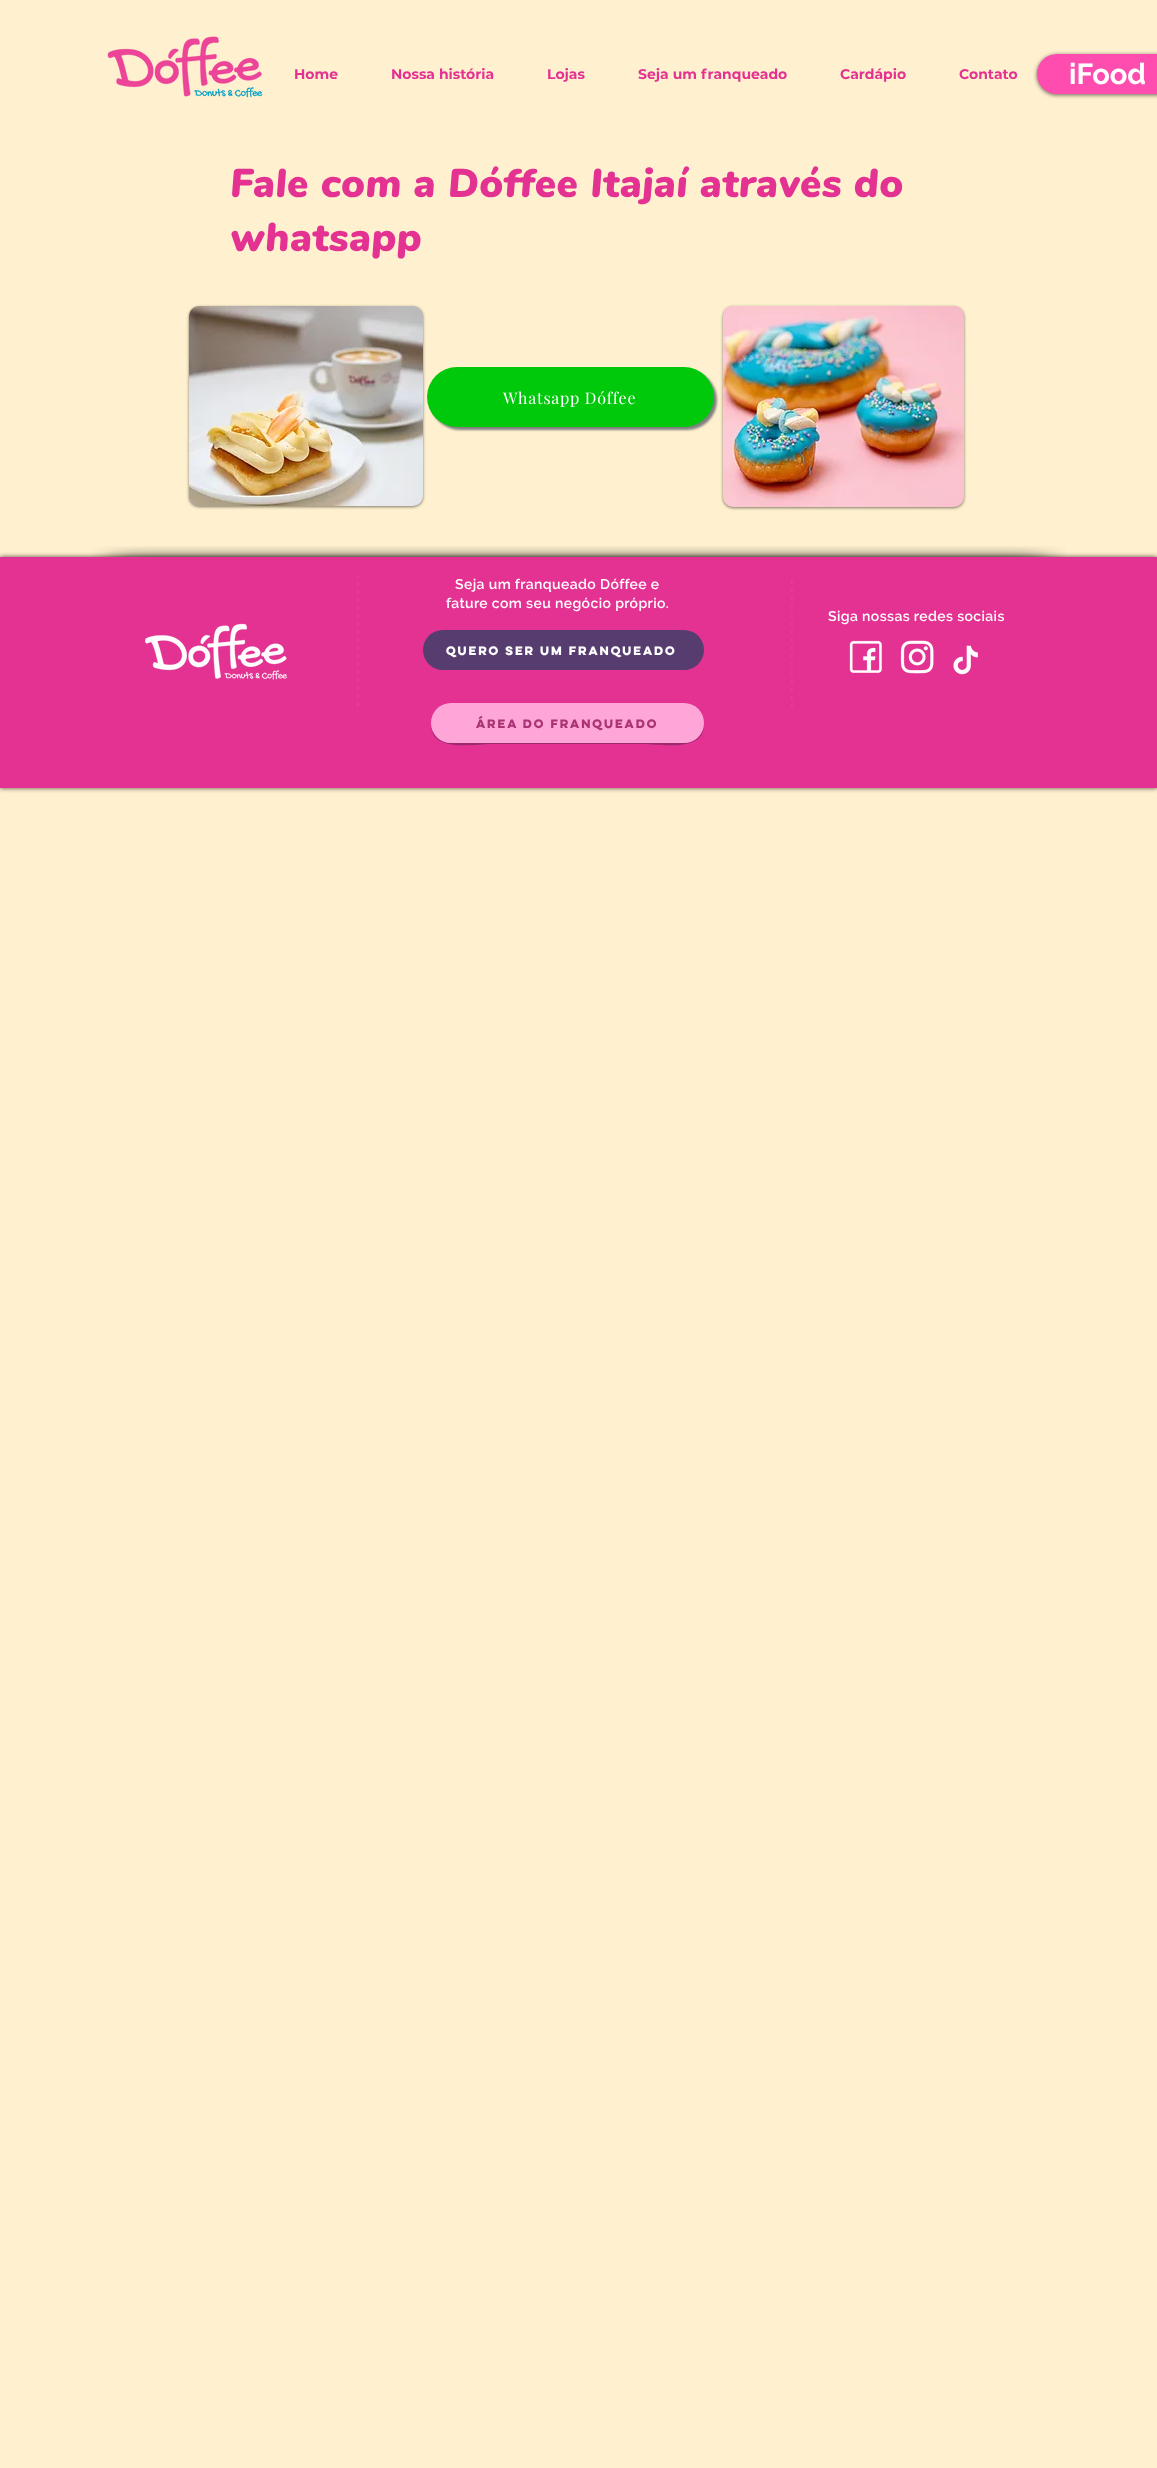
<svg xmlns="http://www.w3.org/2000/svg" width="1157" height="2468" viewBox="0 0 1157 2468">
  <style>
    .t1 { font: bold 14px Montserrat; fill: #e43292; }
    .t2 { font: bold 29px Raleway; fill: #fff; }
    .t3 { font: italic 900 40px Nunito; letter-spacing: 0.4px; fill: #e43292; }
    .t4 { font: 16px Playfair Display; letter-spacing: 0.75px; fill: #fff; }
    .t5 { font: 600 14px Raleway; letter-spacing: 0.4px; fill: #fff; }
    .t6 { font: bold 11px 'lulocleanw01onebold'; letter-spacing: -0.55px; fill: #fff; }
    .t7 { font: bold 11px 'lulocleanw01onebold'; letter-spacing: -0.55px; fill: #a93375; }
  </style>
  <rect width="100%" height="100%" fill="#fff1cf"/>
  <image x="107" y="36" width="156" height="62" href="images/1.png"/>
  <text x="294" y="79" class="t1">Home</text>
  <text x="391" y="79" class="t1">Nossa história</text>
  <text x="547" y="79" class="t1">Lojas</text>
  <text x="638" y="79" class="t1">Seja um franqueado</text>
  <text x="840" y="79" class="t1">Cardápio</text>
  <text x="959" y="79" class="t1">Contato</text>
  <rect x="1037" y="55" width="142" height="40" rx="20" fill="#00000099" filter="blur(2px)"/>
  <rect x="1037" y="54" width="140" height="40" rx="20" fill="#fe4daf"/>
  <text x="1069" y="84" class="t2">iFood</text>
  <text x="230" y="197" class="t3">Fale com a Dóffee Itajaí através do</text>
  <text x="230" y="251" class="t3">whatsapp</text>
  <rect x="189" y="307" width="234" height="200" rx="10" fill="#00000080" filter="blur(1.5px)"/>
  <image x="189" y="306" width="234" height="200" href="images/2.png"/>
  <rect x="430" y="370" width="287" height="60" rx="30" fill="#808080" filter="blur(1px)"/>
  <rect x="427" y="367" width="287" height="60" rx="30" fill="#00c90c"/>
  <text x="503" y="404" class="t4">Whatsapp Dóffee</text>
  <rect x="723" y="307" width="241" height="201" rx="10" fill="#00000080" filter="blur(1.5px)"/>
  <image x="723" y="306" width="241" height="201" href="images/3.png"/>
  <rect x="0" y="557" width="1157" height="231" fill="#000000b3" filter="blur(2.5px)"/>
  <rect x="0" y="557" width="1157" height="231" fill="#e33292"/>
  <image x="92" y="546" width="97" height="11" href="images/4.png"/>
  <image x="189" y="546" width="780" height="11" href="images/5.png"/>
  <image x="969" y="546" width="97" height="11" href="images/6.png"/>
  <image x="357" y="575" width="2" height="138" href="images/7.png"/>
  <text x="455" y="589" class="t5">Seja um franqueado Dóffee e</text>
  <text x="446" y="608" class="t5">fature com seu negócio próprio.</text>
  <image x="791" y="574" width="2" height="141" href="images/8.png"/>
  <text x="828" y="621" class="t5">Siga nossas redes sociais</text>
  <image x="145" y="623" width="143" height="57" href="images/9.png"/>
  <rect x="423" y="630" width="281" height="40" rx="20" fill="#573d6f"/>
  <text x="446" y="655" class="t6">Quero ser um franqueado</text>
  <image x="849" y="640" width="33" height="33" href="images/10.png"/>
  <image x="900" y="640" width="34" height="34" href="images/11.png"/>
  <image x="953" y="645" width="25" height="30" href="images/12.png"/>
  <path d="M431 724C430 753 476 744 490 744H645C659 744 705 753 704 724C704 734 695 743 684 743H451C440 743 431 734 431 724Z" fill="#9d296d"/>
  <rect x="431" y="703" width="273" height="40" rx="20" fill="#fea6d7"/>
  <text x="476" y="728" class="t7">Área do Franqueado</text>
</svg>
